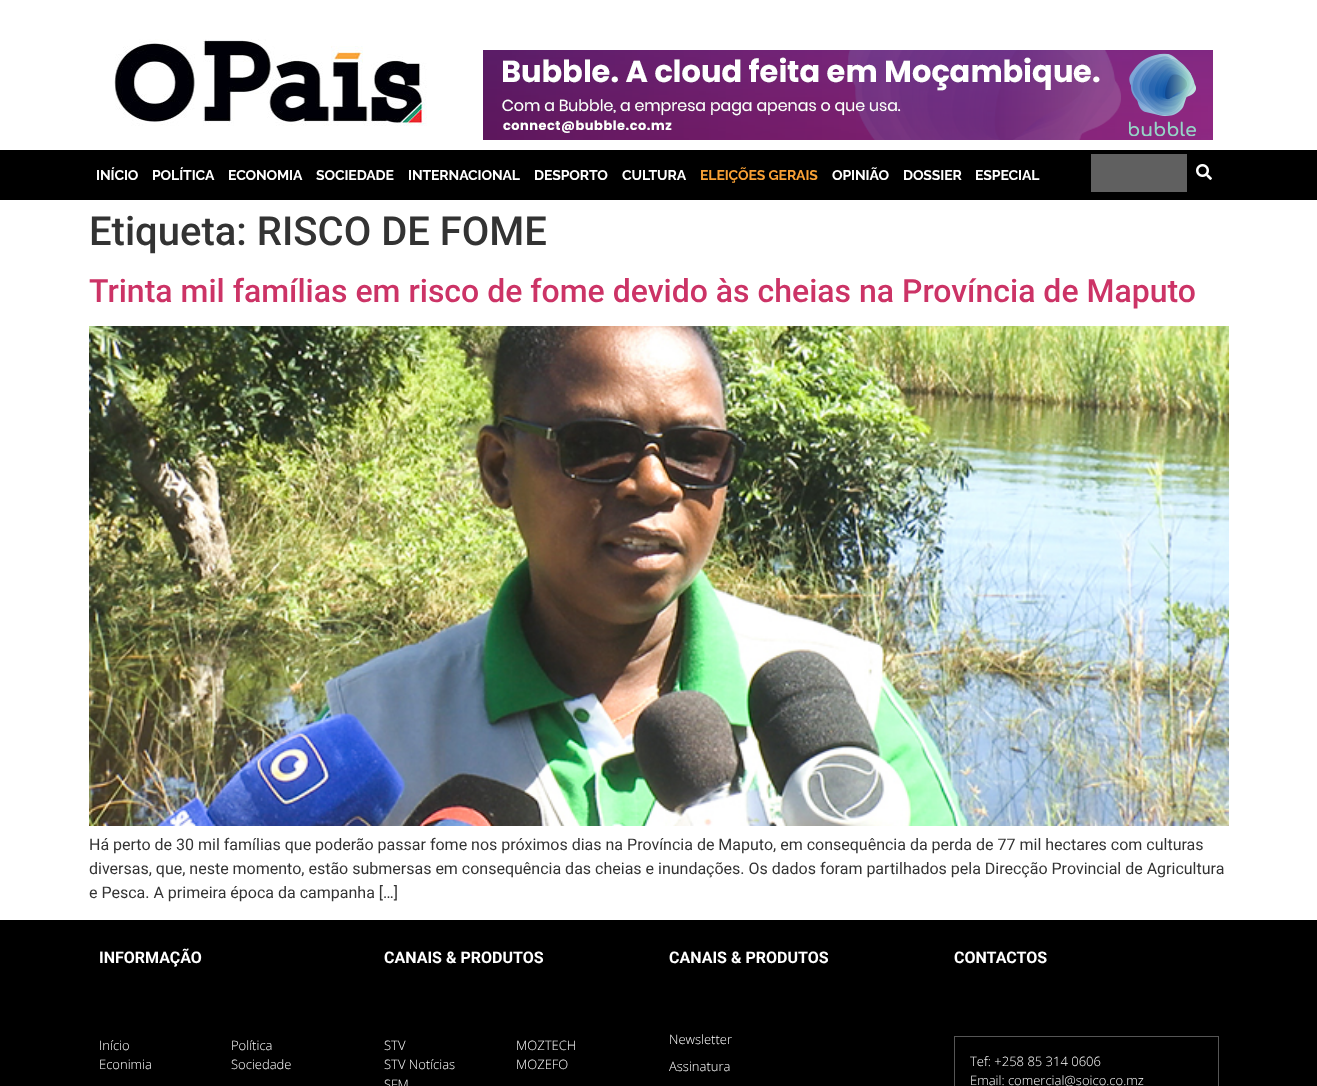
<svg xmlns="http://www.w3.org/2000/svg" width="1317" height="1086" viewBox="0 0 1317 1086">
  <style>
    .t1 { font: bold 14px Raleway; letter-spacing: -0.1px; fill: #fff; }
    .t2 { font: bold 14px Raleway; letter-spacing: -0.1px; fill: #f9a135; }
    .t3 { font: 500 40px Roboto; fill: #333; }
    .t4 { font: 500 32px Roboto; fill: #c36; }
    .t5 { font: 16px Roboto; fill: #333; }
    .t6 { font: bold 16px Roboto; fill: #fff; }
    .t7 { font: 300 13px Open Sans; fill: #fff; }
  </style>
  <rect width="100%" height="100%" fill="#fff"/>
  <image x="114" y="39" width="313" height="87" href="images/1.png"/>
  <image x="483" y="50" width="730" height="90" href="images/2.png"/>
  <rect x="0" y="150" width="1317" height="50" fill="#000"/>
  <text x="96" y="180" class="t1">INÍCIO</text>
  <text x="152" y="180" class="t1">POLÍTICA</text>
  <text x="228" y="180" class="t1">ECONOMIA</text>
  <text x="316" y="180" class="t1">SOCIEDADE</text>
  <text x="408" y="180" class="t1">INTERNACIONAL</text>
  <text x="534" y="180" class="t1">DESPORTO</text>
  <text x="622" y="180" class="t1">CULTURA</text>
  <text x="700" y="180" class="t2">ELEIÇÕES GERAIS</text>
  <text x="832" y="180" class="t1">OPINIÃO</text>
  <text x="903" y="180" class="t1">DOSSIER</text>
  <text x="975" y="180" class="t1">ESPECIAL</text>
  <rect x="1091" y="154" width="96" height="38" fill="#606060"/>
  <image x="1196" y="164" width="16" height="16" href="images/3.png"/>
  <text x="89" y="245" class="t3">Etiqueta: RISCO DE FOME</text>
  <text x="89" y="302" class="t4">Trinta mil famílias em risco de fome devido às cheias na Província de Maputo</text>
  <image x="89" y="326" width="1140" height="500" href="images/4.png"/>
  <text x="89" y="850" class="t5">Há perto de 30 mil famílias que poderão passar fome nos próximos dias na Província de Maputo, em consequência da perda de 77 mil hectares com culturas</text>
  <text x="89" y="874" class="t5">diversas, que, neste momento, estão submersas em consequência das cheias e inundações. Os dados foram partilhados pela Direcção Provincial de Agricultura</text>
  <text x="89" y="898" class="t5">e Pesca. A primeira época da campanha […]</text>
  <rect x="0" y="920" width="1317" height="166" fill="#000"/>
  <text x="99" y="963" class="t6">INFORMAÇÃO</text>
  <text x="99" y="1050" class="t7">Início</text>
  <text x="99" y="1069" class="t7">Econimia</text>
  <text x="231" y="1050" class="t7">Política</text>
  <text x="231" y="1069" class="t7">Sociedade</text>
  <text x="384" y="963" class="t6">CANAIS &amp; PRODUTOS</text>
  <text x="384" y="1050" class="t7">STV</text>
  <text x="384" y="1069" class="t7">STV Notícias</text>
  <text x="384" y="1089" class="t7">SFM</text>
  <text x="516" y="1050" class="t7">MOZTECH</text>
  <text x="516" y="1069" class="t7">MOZEFO</text>
  <text x="669" y="963" class="t6">CANAIS &amp; PRODUTOS</text>
  <text x="669" y="1044" class="t7">Newsletter</text>
  <text x="669" y="1071" class="t7">Assinatura</text>
  <text x="954" y="963" class="t6">CONTACTOS</text>
  <rect x="954.5" y="1036.5" width="264" height="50" fill="none" stroke="#555"/>
  <text x="970" y="1066" class="t7">Tef: +258 85 314 0606</text>
  <text x="970" y="1085" class="t7">Email: comercial@soico.co.mz</text>
</svg>
